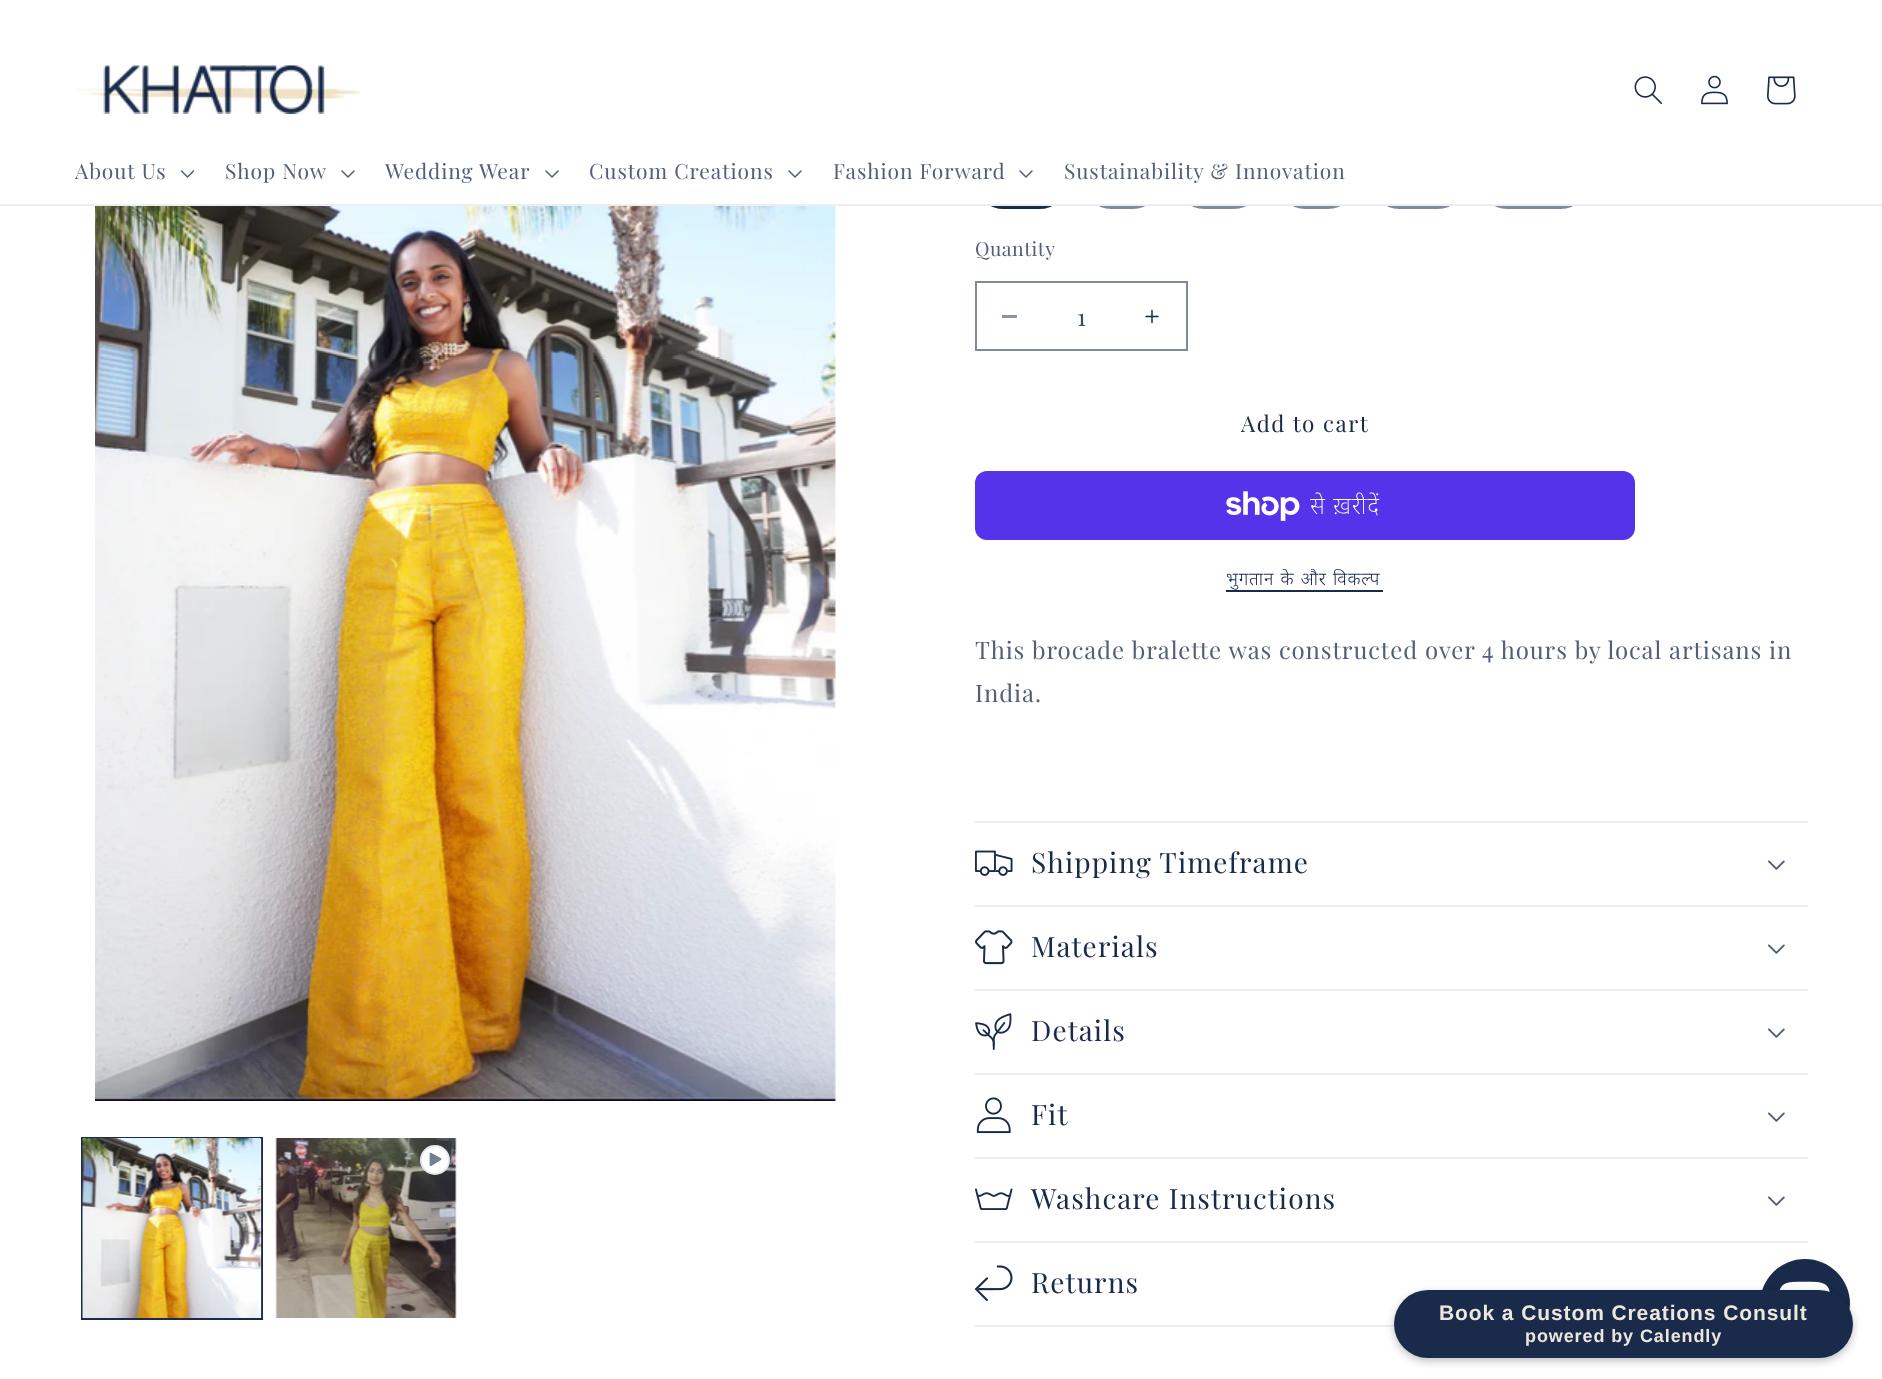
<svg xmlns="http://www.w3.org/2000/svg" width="1882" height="1379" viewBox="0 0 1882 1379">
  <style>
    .t1 { font: 21px Playfair Display; letter-spacing: 0.9px; fill: #535f77; }
    .t2 { font: 19.5px Playfair Display; letter-spacing: 0.5px; fill: #535f77; }
    .t3 { font: 24px Playfair Display; fill: #3c4a65; }
    .t4 { font: 22.5px Playfair Display; letter-spacing: 1.5px; fill: #192a4a; }
    .t5 { font: 200 24px Noto Sans; letter-spacing: 0.9px; fill: #fff; }
    .t6 { font: 300 18px Noto Sans; letter-spacing: 0.75px; fill: #192a4a; }
    .t7 { font: 24px Playfair Display; letter-spacing: 0.9px; fill: #535f77; }
    .t8 { font: 28.1px Playfair Display; letter-spacing: 1.1px; fill: #192a4a; }
    .t9 { font: bold 21px Liberation Sans; letter-spacing: 0.9px; fill: #ece7dc; }
    .t10 { font: bold 18px Liberation Sans; letter-spacing: 0.9px; fill: #ece7dc; }
  </style>
  <rect width="100%" height="100%" fill="#fff"/>
  <rect x="975" y="152" width="93" height="57" rx="28.5" fill="#192a4a"/>
  <rect x="976.5" y="153.5" width="90" height="54" rx="27" fill="none" stroke="#192a4a8c" stroke-width="3"/>
  <rect x="1084.5" y="153.5" width="75" height="54" rx="27" fill="none" stroke="#818a9b" stroke-width="3"/>
  <rect x="1177.5" y="153.5" width="83" height="54" rx="27" fill="none" stroke="#818a9b" stroke-width="3"/>
  <rect x="1278.5" y="153.5" width="76" height="54" rx="27" fill="none" stroke="#818a9b" stroke-width="3"/>
  <rect x="1372.5" y="153.5" width="92" height="54" rx="27" fill="none" stroke="#818a9b" stroke-width="3"/>
  <rect x="1480.5" y="153.5" width="107" height="54" rx="27" fill="none" stroke="#818a9b" stroke-width="3"/>
  <rect x="975" y="152" width="614" height="52" fill="#fff"/>
  <rect x="0" y="204" width="1882" height="2" fill="#edeef1"/>
  <image x="75" y="65" width="285" height="49" href="images/1.png"/>
  <image x="1634" y="76" width="28" height="28" href="images/2.png"/>
  <image x="1701" y="75" width="27" height="30" href="images/3.png"/>
  <image x="1767" y="76" width="29" height="29" href="images/4.png"/>
  <text x="75" y="179" class="t1">About Us</text>
  <image x="180" y="170" width="15" height="8" href="images/5.png"/>
  <text x="225" y="179" class="t1">Shop Now</text>
  <image x="341" y="170" width="14" height="8" href="images/6.png"/>
  <text x="385" y="179" class="t1">Wedding Wear</text>
  <image x="545" y="170" width="14" height="8" href="images/6.png"/>
  <text x="589" y="179" class="t1">Custom Creations</text>
  <image x="788" y="170" width="14" height="8" href="images/6.png"/>
  <text x="833" y="179" class="t1">Fashion Forward</text>
  <image x="1019" y="170" width="14" height="8" href="images/6.png"/>
  <text x="1064" y="179" class="t1">Sustainability &amp; Innovation</text>
  <image x="95" y="206" width="741" height="895" href="images/7.png"/>
  <rect x="82" y="1138" width="180" height="181" fill="none" stroke="#192a4a" stroke-width="2"/>
  <image x="82" y="1138" width="180" height="180" href="images/8.png"/>
  <image x="275" y="1138" width="182" height="180" href="images/9.png"/>
  <circle cx="435" cy="1160" r="15" fill="#fff"/>
  <circle cx="435" cy="1160" r="14" fill="none" stroke="#192a4a1a" stroke-width="2"/>
  <image x="429" y="1152" width="13" height="15" href="images/10.png"/>
  <text x="975" y="256" class="t2">Quantity</text>
  <rect x="1002" y="315" width="15" height="3" fill="#8c95a5"/>
  <image x="1145" y="309" width="14" height="15" href="images/11.png"/>
  <rect x="976" y="282" width="211" height="68" fill="none" stroke="#818a9b" stroke-width="2"/>
  <text x="1077" y="326" class="t3">1</text>
  <text x="1241" y="432" class="t4">Add to cart</text>
  <rect x="975" y="471" width="660" height="69" rx="12" fill="#5433eb"/>
  <image x="1226" y="491" width="74" height="30" href="images/12.png"/>
  <text x="1310" y="514" class="t5">से ख़रीदें</text>
  <text x="1226" y="585" word-spacing="1" class="t6">भुगतान के और विकल्प</text>
  <rect x="1226" y="590" width="157" height="2" fill="#192a4a"/>
  <text x="975" y="659" class="t7">This brocade bralette was constructed over 4 hours by local artisans in</text>
  <text x="975" y="702" class="t7">India.</text>
  <rect x="975" y="821" width="833" height="2" fill="#edeef1"/>
  <rect x="975" y="905" width="833" height="2" fill="#edeef1"/>
  <image x="975" y="850" width="38" height="26" href="images/13.png"/>
  <text x="1031" y="873" class="t8">Shipping Timeframe</text>
  <image x="1768" y="860" width="17" height="10" href="images/14.png"/>
  <rect x="975" y="989" width="833" height="2" fill="#edeef1"/>
  <image x="975" y="930" width="38" height="35" href="images/15.png"/>
  <text x="1031" y="957" class="t8">Materials</text>
  <image x="1768" y="944" width="17" height="10" href="images/14.png"/>
  <rect x="975" y="1073" width="833" height="2" fill="#edeef1"/>
  <image x="975" y="1013" width="37" height="37" href="images/16.png"/>
  <text x="1031" y="1041" class="t8">Details</text>
  <image x="1768" y="1028" width="17" height="10" href="images/14.png"/>
  <rect x="975" y="1157" width="833" height="2" fill="#edeef1"/>
  <image x="976" y="1097" width="35" height="37" href="images/17.png"/>
  <text x="1031" y="1125" class="t8">Fit</text>
  <image x="1768" y="1112" width="17" height="10" href="images/14.png"/>
  <rect x="975" y="1241" width="833" height="2" fill="#edeef1"/>
  <image x="975" y="1188" width="38" height="22" href="images/18.png"/>
  <text x="1031" y="1209" class="t8">Washcare Instructions</text>
  <image x="1768" y="1196" width="17" height="10" href="images/14.png"/>
  <rect x="975" y="1325" width="420" height="2" fill="#edeef1"/>
  <image x="975" y="1265" width="38" height="36" href="images/19.png"/>
  <text x="1031" y="1293" class="t8">Returns</text>
  <circle cx="1805" cy="1304" r="45" fill="#192a4a"/>
  <image x="1779" y="1281" width="51" height="11" href="images/20.png"/>
  <rect x="1394" y="1293" width="459" height="68" rx="34" fill="#00000040" filter="blur(4px)"/>
  <rect x="1394" y="1290" width="459" height="68" rx="34" fill="#192a4a"/>
  <text x="1439" y="1320" class="t9">Book a Custom Creations Consult</text>
  <text x="1525" y="1342" class="t10">powered by Calendly</text>
</svg>
